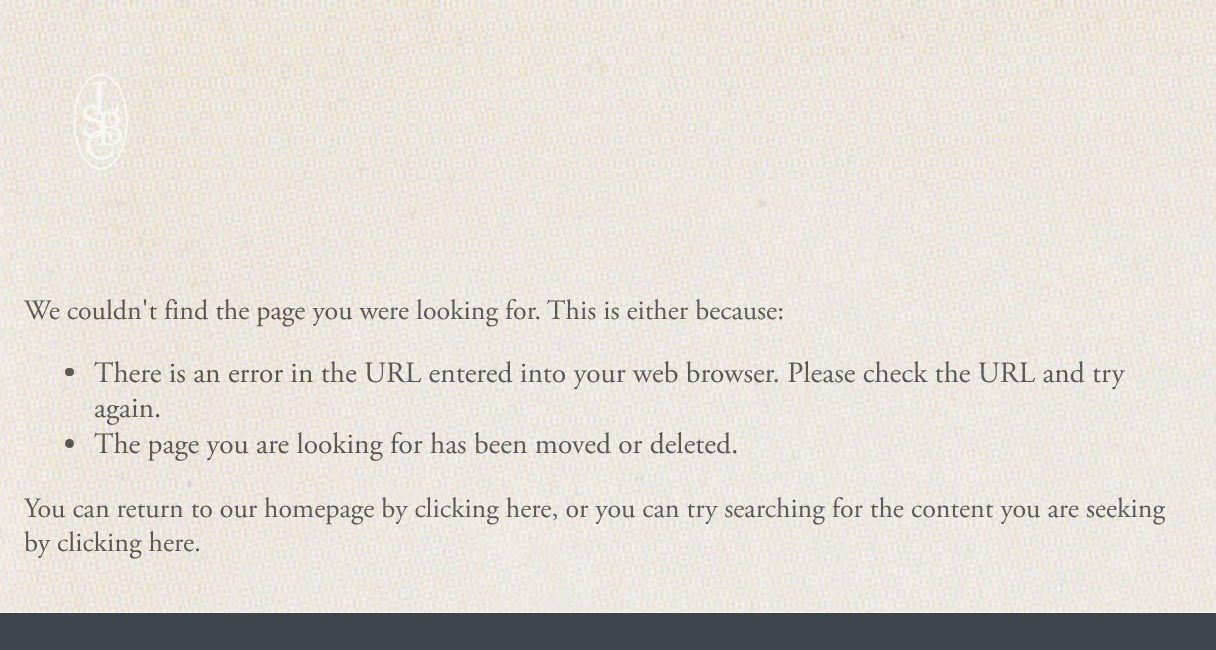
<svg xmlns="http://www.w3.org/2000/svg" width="1216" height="650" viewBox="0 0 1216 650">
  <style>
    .t1 { font: 28px Adobe Garamond; fill: #373737; }
    .t2 { font: 29.45px Adobe Garamond; fill: #373737; }
  </style>
  <rect width="100%" height="100%" fill="#f7f6f1"/>
  <text x="24" y="319" class="t1">We couldn't find the page you were looking for. This is either because:</text>
  <rect x="65" y="368" width="9" height="8" rx="4" fill="#373737"/>
  <text x="94" y="382" class="t2">There is an error in the URL entered into your web browser. Please check the URL and try</text>
  <text x="94" y="417" class="t2">again.</text>
  <circle cx="69.5" cy="443.5" r="4.5" fill="#373737"/>
  <text x="94" y="453" class="t2">The page you are looking for has been moved or deleted.</text>
  <text x="24" y="517" class="t1">You can return to our homepage by clicking here, or you can try searching for the content you are seeking</text>
  <text x="24" y="551" class="t1">by clicking here.</text>
  <image x="0" y="0" width="1216" height="613" href="images/2.png"/>
  <image x="73" y="73" width="55" height="97" href="images/1.png"/>
  <rect x="0" y="613" width="1216" height="37" fill="#3c4549"/>
</svg>
